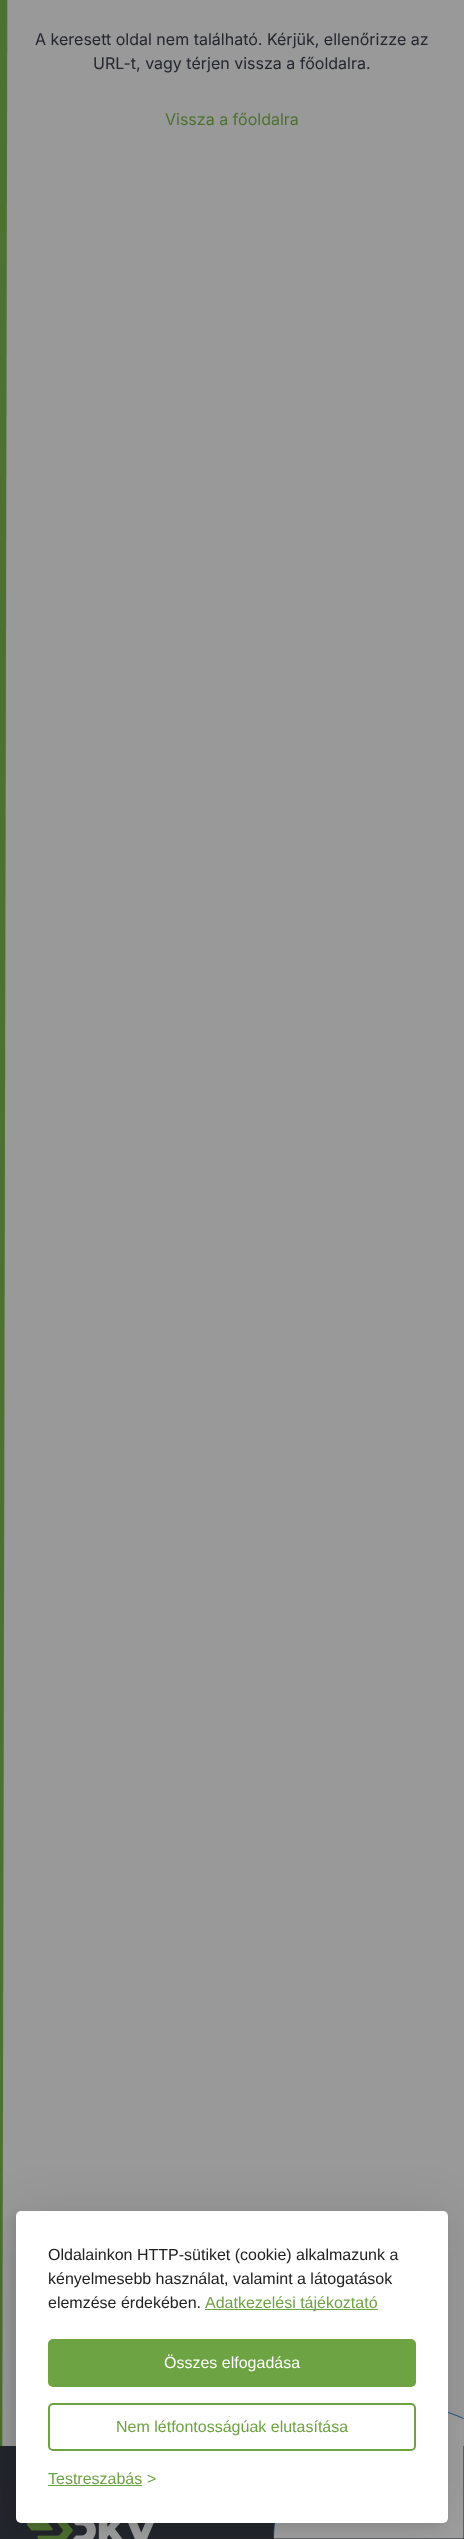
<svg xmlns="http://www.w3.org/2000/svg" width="464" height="2539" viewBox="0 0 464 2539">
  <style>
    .t1 { font: 16px Inter; fill: #23262c; }
    .t2 { font: 16px Inter; fill: #4d7130; }
    .t3 { font: 16px Liberation Sans; fill: #212121; }
    .t4 { font: 16px Liberation Sans; fill: #6da342; }
    .t5 { font: 16px Liberation Sans; fill: #fff; }
  </style>
  <rect width="100%" height="100%" fill="#999"/>
  <path d="M0-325V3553L8-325Z" fill="#4d7130"/>
  <text x="35" y="45" class="t1">A keresett oldal nem található. Kérjük, ellenőrizze az</text>
  <text x="93" y="69" class="t1">URL-t, vagy térjen vissza a főoldalra.</text>
  <text x="165" y="125" class="t2">Vissza a főoldalra</text>
  <rect x="0" y="2446" width="464" height="93" fill="#23262c"/>
  <image x="26" y="2523" width="128" height="16" href="images/1.png"/>
  <image x="273" y="2412" width="191" height="127" href="images/2.png"/>
  <rect x="16" y="2211" width="432" height="312" rx="5" fill="#0000001a" filter="blur(25px)"/>
  <rect x="11" y="2216" width="432" height="312" rx="5" fill="#00000012" filter="blur(5px)"/>
  <rect x="16" y="2211" width="432" height="312" rx="5" fill="#fff"/>
  <text x="48" y="2260" class="t3">Oldalainkon HTTP-sütiket (cookie) alkalmazunk a</text>
  <text x="48" y="2284" class="t3">kényelmesebb használat, valamint a látogatások</text>
  <text x="48" y="2308" class="t3">elemzése érdekében.</text>
  <rect x="205" y="2309" width="173" height="1" fill="#6da342"/>
  <text x="205" y="2308" class="t4">Adatkezelési tájékoztató</text>
  <rect x="49" y="2340" width="366" height="46" rx="4" fill="#6da342" stroke="#6da342" stroke-width="2"/>
  <text x="164" y="2368" class="t5">Összes elfogadása</text>
  <rect x="49" y="2404" width="366" height="46" rx="4" fill="none" stroke="#6da342" stroke-width="2"/>
  <text x="116" y="2432" class="t4">Nem létfontosságúak elutasítása</text>
  <text x="48" y="2484" class="t4">Testreszabás</text>
  <rect x="48" y="2485" width="94" height="1" fill="#6da342"/>
  <text x="147" y="2484" class="t4">&gt;</text>
</svg>
